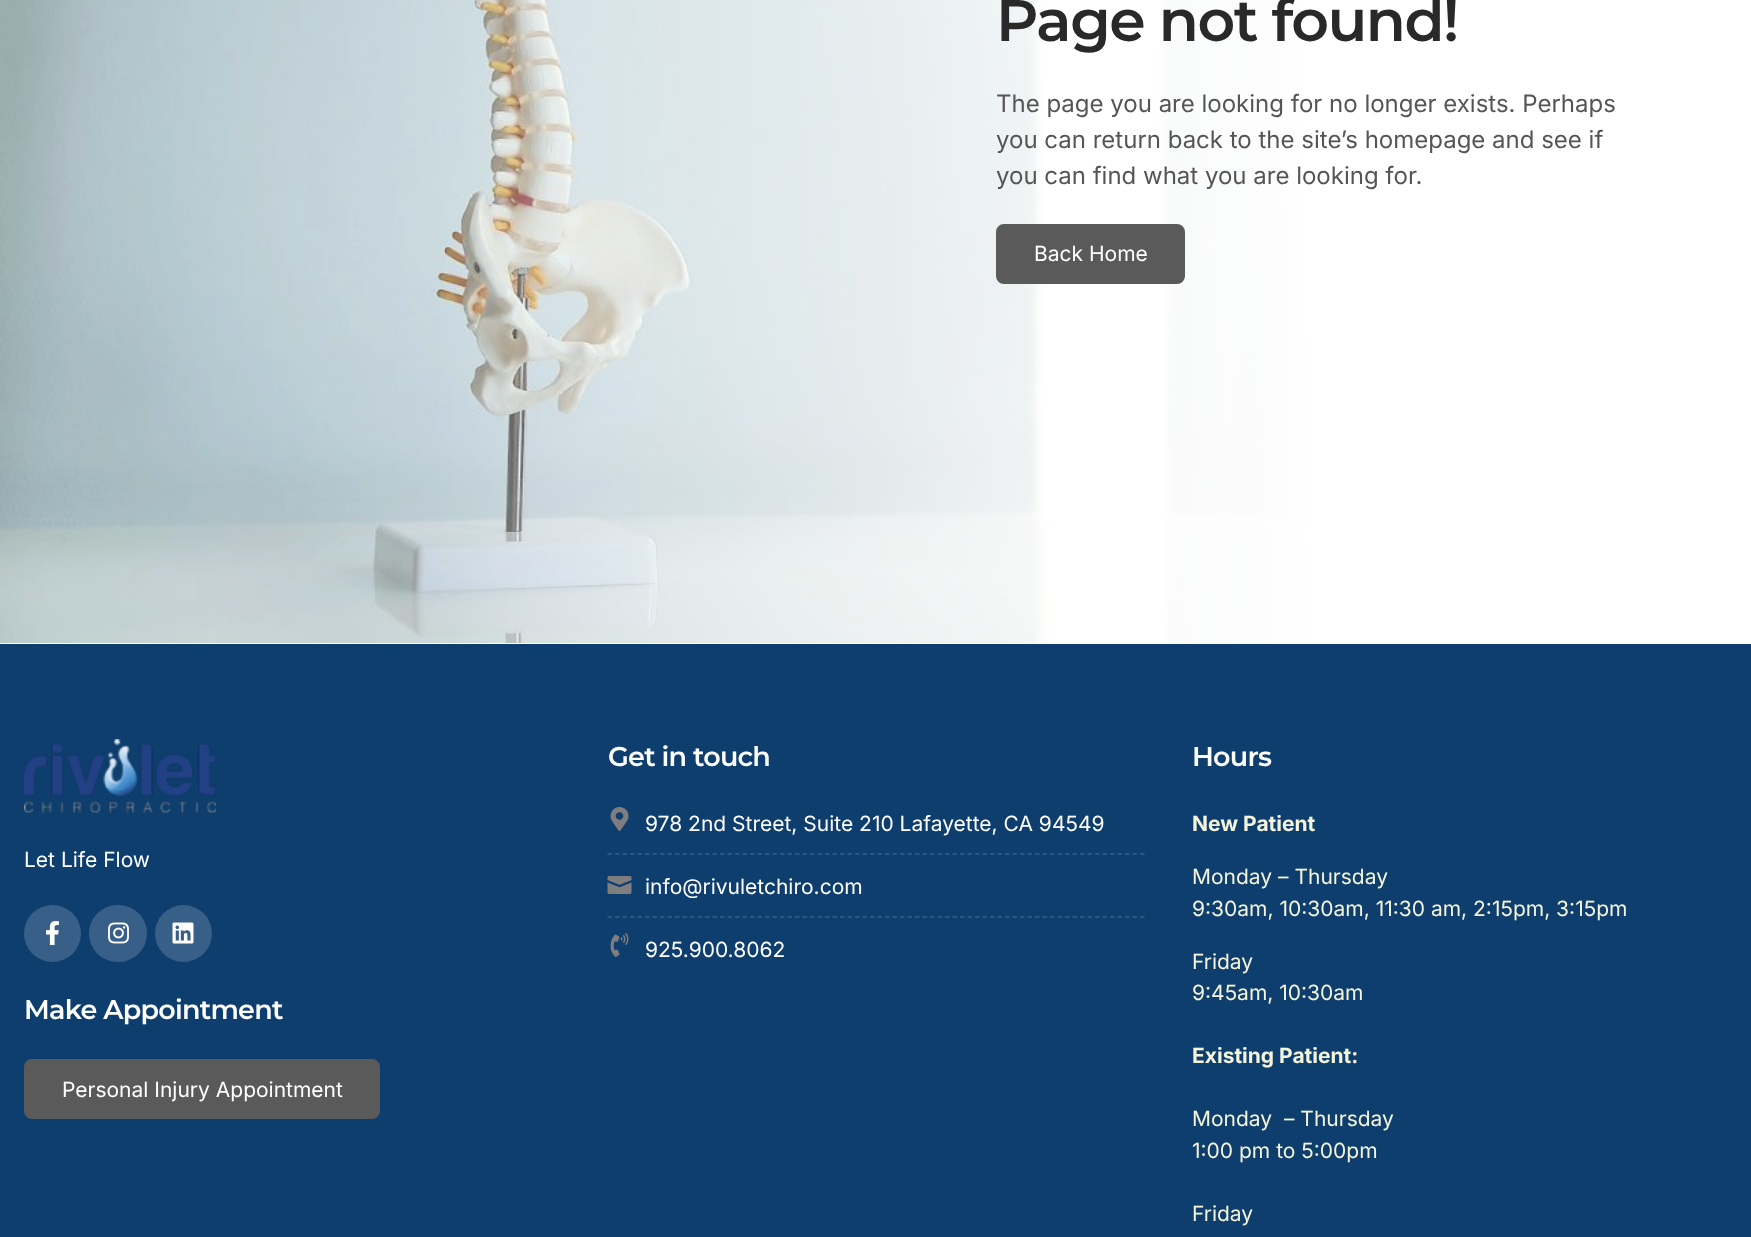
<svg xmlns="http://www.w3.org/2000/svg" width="1751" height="1237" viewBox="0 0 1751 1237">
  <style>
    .t1 { font: 600 58.5px Montserrat; letter-spacing: -1.5px; fill: #292929; }
    .t2 { font: 24px Inter; fill: #555; }
    .t3 { font: 21px Inter; fill: #fff; }
    .t4 { font: 600 27px Montserrat; letter-spacing: -0.75px; fill: #fff; }
    .t5 { font: bold 21px Inter; fill: #f5f5dc; }
    .t6 { font: 21px Inter; fill: #f5f5dc; }
  </style>
  <rect width="100%" height="100%" fill="#fff"/>
  <image x="0" y="0" width="1751" height="643" href="images/1.png"/>
  <text x="996" y="41" class="t1">Page not found!</text>
  <text x="996" y="112" class="t2">The page you are looking for no longer exists. Perhaps</text>
  <text x="996" y="148" class="t2">you can return back to the site’s homepage and see if</text>
  <text x="996" y="184" class="t2">you can find what you are looking for.</text>
  <rect x="997" y="225" width="187" height="58" rx="7" fill="#5a5a5a" stroke="#5a5a5a" stroke-width="2"/>
  <text x="1034" y="261" class="t3">Back Home</text>
  <rect x="0" y="644" width="1751" height="593" fill="#0e3e6e"/>
  <image x="24" y="739" width="192" height="74" href="images/2.png"/>
  <text x="24" y="867" class="t3">Let Life Flow</text>
  <circle cx="52.5" cy="933.5" r="28.5" fill="#375f87"/>
  <image x="46" y="921" width="13" height="24" href="images/3.png"/>
  <rect x="89" y="905" width="58" height="57" rx="28.5" fill="#375f87"/>
  <image x="108" y="922" width="21" height="22" href="images/4.png"/>
  <circle cx="183.5" cy="933.5" r="28.5" fill="#375f87"/>
  <image x="172" y="922" width="22" height="22" href="images/5.png"/>
  <text x="24" y="1019" class="t4">Make Appointment</text>
  <rect x="25" y="1060" width="354" height="58" rx="7" fill="#5a5a5a" stroke="#5a5a5a" stroke-width="2"/>
  <text x="62" y="1097" class="t3">Personal Injury Appointment</text>
  <text x="608" y="766" class="t4">Get in touch</text>
  <image x="610" y="807" width="19" height="24" href="images/6.png"/>
  <text x="645" y="831" class="t3">978 2nd Street, Suite 210 Lafayette, CA 94549</text>
  <path d="M607.5 854H1144.5" fill="none" stroke="#375f87" stroke-width="1.5" stroke-dasharray="4.5 3"/>
  <image x="607" y="876" width="25" height="18" href="images/7.png"/>
  <text x="645" y="894" class="t3">info@rivuletchiro.com</text>
  <path d="M607.5 917H1144.5" fill="none" stroke="#375f87" stroke-width="1.5" stroke-dasharray="4.5 3"/>
  <image x="610" y="933" width="19" height="24" href="images/8.png"/>
  <text x="645" y="957" class="t3">925.900.8062</text>
  <text x="1192" y="766" class="t4">Hours</text>
  <text x="1192" y="831" class="t5">New Patient</text>
  <text x="1192" y="884" class="t6">Monday – Thursday</text>
  <text x="1192" y="916" class="t6">9:30am, 10:30am, 11:30 am, 2:15pm, 3:15pm</text>
  <text x="1192" y="969" class="t6">Friday</text>
  <text x="1192" y="1000" class="t6">9:45am, 10:30am</text>
  <text x="1192" y="1063" class="t5">Existing Patient:</text>
  <text x="1192" y="1126" class="t6" xml:space="preserve">Monday  – Thursday</text>
  <text x="1192" y="1158" class="t6">1:00 pm to 5:00pm</text>
  <text x="1192" y="1221" class="t6">Friday</text>
</svg>
